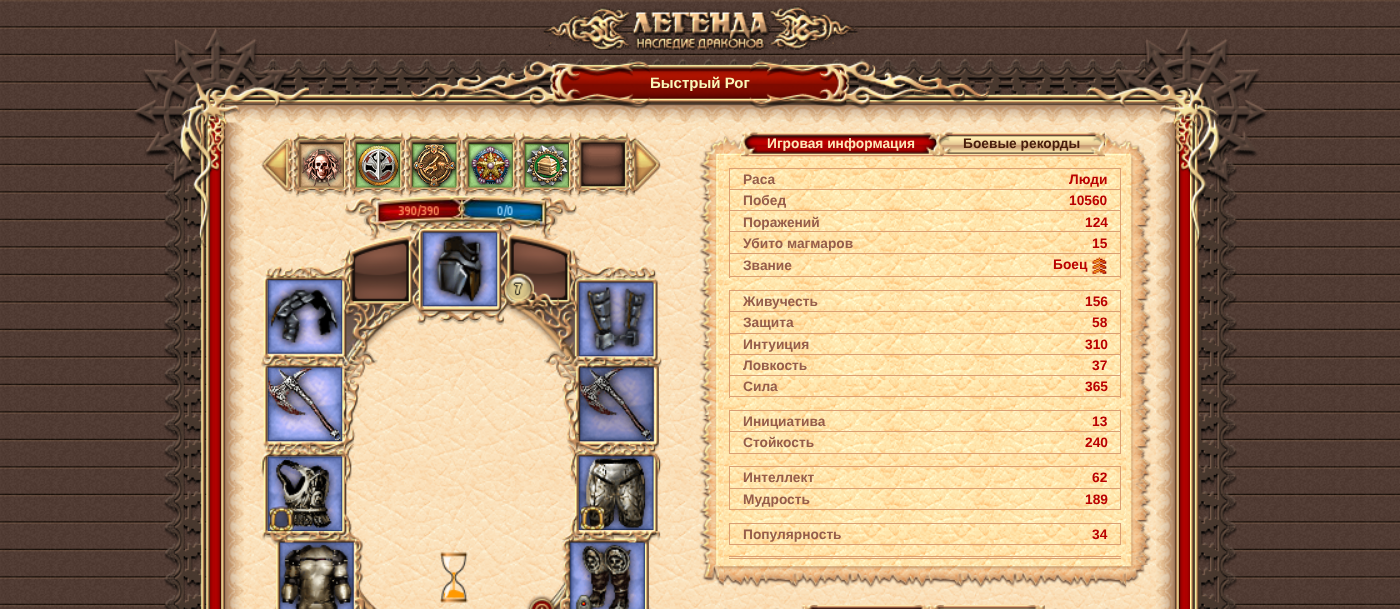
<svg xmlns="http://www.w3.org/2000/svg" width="1400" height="609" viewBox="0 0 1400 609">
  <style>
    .t1 { font: bold 15px Liberation Sans; fill: #faf7b9; }
    .t2 { font: bold 13.75px Liberation Sans; fill: #ffe9ba; }
    .t3 { font: bold 13.75px Liberation Sans; fill: #461c0b; }
    .t4 { font: bold 13.75px Liberation Sans; fill: #955c4a; }
    .t5 { font: bold 13.75px Liberation Sans; fill: #ba0000; }
  </style>
  <rect width="100%" height="100%" fill="#fff"/>
  <image x="0" y="0" width="1400" height="609" href="images/1.png"/>
  <image x="543" y="6" width="315" height="44" href="images/2.png"/>
  <image x="210" y="58" width="980" height="46" href="images/4.png"/>
  <image x="164" y="103" width="46" height="506" href="images/8.png"/>
  <image x="210" y="103" width="980" height="506" href="images/10.png"/>
  <image x="210" y="103" width="34" height="506" href="images/11.png"/>
  <image x="1156" y="103" width="34" height="506" href="images/12.png"/>
  <image x="225" y="103" width="950" height="20" href="images/13.png"/>
  <image x="134" y="28" width="175" height="220" href="images/3.png"/>
  <image x="410" y="61" width="241" height="48" href="images/5.png"/>
  <image x="650" y="61" width="340" height="48" href="images/6.png"/>
  <text x="650" y="88" class="t1">Быстрый Рог</text>
  <image x="1190" y="103" width="47" height="506" href="images/9.png"/>
  <image x="1086" y="29" width="182" height="219" href="images/7.png"/>
  <image x="261" y="137" width="32" height="58" href="images/14.png"/>
  <image x="293" y="132" width="56" height="66" href="images/15.png"/>
  <image x="300" y="143" width="44" height="45" href="images/16.png"/>
  <image x="350" y="132" width="55" height="66" href="images/17.png"/>
  <image x="356" y="143" width="44" height="45" href="images/18.png"/>
  <image x="406" y="132" width="56" height="66" href="images/19.png"/>
  <image x="412" y="143" width="45" height="45" href="images/20.png"/>
  <image x="462" y="132" width="56" height="66" href="images/21.png"/>
  <image x="468" y="143" width="45" height="45" href="images/22.png"/>
  <image x="518" y="132" width="56" height="66" href="images/23.png"/>
  <image x="525" y="143" width="44" height="45" href="images/24.png"/>
  <image x="575" y="132" width="55" height="66" href="images/25.png"/>
  <image x="630" y="137" width="31" height="60" href="images/26.png"/>
  <image x="422" y="232" width="76" height="75" href="images/28.png"/>
  <image x="267" y="279" width="76" height="75" href="images/29.png"/>
  <image x="578" y="282" width="76" height="75" href="images/30.png"/>
  <image x="267" y="367" width="76" height="75" href="images/31.png"/>
  <image x="579" y="367" width="75" height="75" href="images/32.png"/>
  <image x="267" y="456" width="76" height="76" href="images/33.png"/>
  <image x="578" y="456" width="76" height="74" href="images/34.png"/>
  <image x="279" y="542" width="75" height="67" href="images/35.png"/>
  <image x="570" y="542" width="75" height="67" href="images/36.png"/>
  <image x="260" y="196" width="402" height="413" href="images/27.png"/>
  <image x="703" y="140" width="21" height="20" href="images/37.png"/>
  <image x="723" y="135" width="404" height="25" href="images/38.png"/>
  <image x="741" y="132" width="21" height="25" href="images/39.png"/>
  <image x="757" y="132" width="183" height="25" href="images/40.png"/>
  <text x="767" y="148" class="t2">Игровая информация</text>
  <image x="936" y="132" width="21" height="25" href="images/41.png"/>
  <image x="952" y="132" width="153" height="25" href="images/42.png"/>
  <text x="963" y="148" class="t3">Боевые рекорды</text>
  <image x="1126" y="140" width="21" height="20" href="images/43.png"/>
  <image x="699" y="160" width="25" height="405" href="images/44.png"/>
  <image x="723" y="160" width="404" height="405" href="images/45.png"/>
  <rect x="729" y="168" width="392" height="1" fill="#db9f73"/>
  <rect x="1120" y="168" width="1" height="110" fill="#db9f73"/>
  <rect x="729" y="276" width="392" height="1" fill="#db9f73"/>
  <rect x="729" y="168" width="1" height="110" fill="#db9f73"/>
  <text x="743" y="184" class="t4">Раса</text>
  <text x="1069" y="184" class="t5">Люди</text>
  <text x="743" y="205" class="t4">Побед</text>
  <rect x="729" y="189" width="392" height="1" fill="#db9f73"/>
  <text x="1069" y="205" class="t5">10560</text>
  <text x="743" y="227" class="t4">Поражений</text>
  <rect x="729" y="210" width="392" height="1" fill="#db9f73"/>
  <text x="1085" y="227" class="t5">124</text>
  <text x="743" y="248" class="t4">Убито магмаров</text>
  <rect x="729" y="231" width="392" height="1" fill="#db9f73"/>
  <text x="1092" y="248" class="t5">15</text>
  <text x="743" y="270" class="t4">Звание</text>
  <rect x="729" y="253" width="392" height="1" fill="#db9f73"/>
  <text x="1053" y="269" class="t5">Боец</text>
  <image x="1092" y="257" width="15" height="17" href="images/46.png"/>
  <rect x="729" y="290" width="392" height="1" fill="#db9f73"/>
  <rect x="1120" y="290" width="1" height="108" fill="#db9f73"/>
  <rect x="729" y="396" width="392" height="1" fill="#db9f73"/>
  <rect x="729" y="290" width="1" height="108" fill="#db9f73"/>
  <text x="743" y="306" class="t4">Живучесть</text>
  <text x="1085" y="306" class="t5">156</text>
  <text x="743" y="327" class="t4">Защита</text>
  <rect x="729" y="311" width="392" height="1" fill="#db9f73"/>
  <text x="1092" y="327" class="t5">58</text>
  <text x="743" y="349" class="t4">Интуиция</text>
  <rect x="729" y="333" width="392" height="1" fill="#db9f73"/>
  <text x="1085" y="349" class="t5">310</text>
  <text x="743" y="370" class="t4">Ловкость</text>
  <rect x="729" y="354" width="392" height="1" fill="#db9f73"/>
  <text x="1092" y="370" class="t5">37</text>
  <text x="743" y="391" class="t4">Сила</text>
  <rect x="729" y="375" width="392" height="1" fill="#db9f73"/>
  <text x="1085" y="391" class="t5">365</text>
  <rect x="729" y="410" width="392" height="1" fill="#db9f73"/>
  <rect x="1120" y="410" width="1" height="44" fill="#db9f73"/>
  <rect x="729" y="453" width="392" height="1" fill="#db9f73"/>
  <rect x="729" y="410" width="1" height="44" fill="#db9f73"/>
  <text x="743" y="426" class="t4">Инициатива</text>
  <text x="1092" y="426" class="t5">13</text>
  <text x="743" y="447" class="t4">Стойкость</text>
  <rect x="729" y="431" width="392" height="1" fill="#db9f73"/>
  <text x="1085" y="447" class="t5">240</text>
  <rect x="729" y="466" width="392" height="1" fill="#db9f73"/>
  <rect x="1120" y="466" width="1" height="44" fill="#db9f73"/>
  <rect x="729" y="509" width="392" height="1" fill="#db9f73"/>
  <rect x="729" y="466" width="1" height="44" fill="#db9f73"/>
  <text x="743" y="482" class="t4">Интеллект</text>
  <text x="1092" y="482" class="t5">62</text>
  <text x="743" y="504" class="t4">Мудрость</text>
  <rect x="729" y="488" width="392" height="1" fill="#db9f73"/>
  <text x="1085" y="504" class="t5">189</text>
  <rect x="729" y="523" width="392" height="1" fill="#db9f73"/>
  <rect x="1120" y="523" width="1" height="22" fill="#db9f73"/>
  <rect x="729" y="544" width="392" height="1" fill="#db9f73"/>
  <rect x="729" y="523" width="1" height="22" fill="#db9f73"/>
  <text x="743" y="539" class="t4">Популярность</text>
  <text x="1092" y="539" class="t5">34</text>
  <rect x="729" y="558" width="392" height="1" fill="#db9f73"/>
  <rect x="729" y="556" width="392" height="1" fill="#db9f73"/>
  <image x="1126" y="160" width="25" height="405" href="images/47.png"/>
  <image x="702" y="565" width="22" height="22" href="images/48.png"/>
  <image x="723" y="565" width="404" height="24" href="images/49.png"/>
  <image x="1126" y="565" width="20" height="19" href="images/50.png"/>
  <image x="724" y="607" width="385" height="2" href="images/51.png"/>
  <image x="801" y="605" width="17" height="4" href="images/52.png"/>
  <image x="817" y="605" width="115" height="4" href="images/53.png"/>
  <image x="927" y="605" width="17" height="4" href="images/54.png"/>
  <image x="943" y="605" width="102" height="4" href="images/55.png"/>
</svg>
